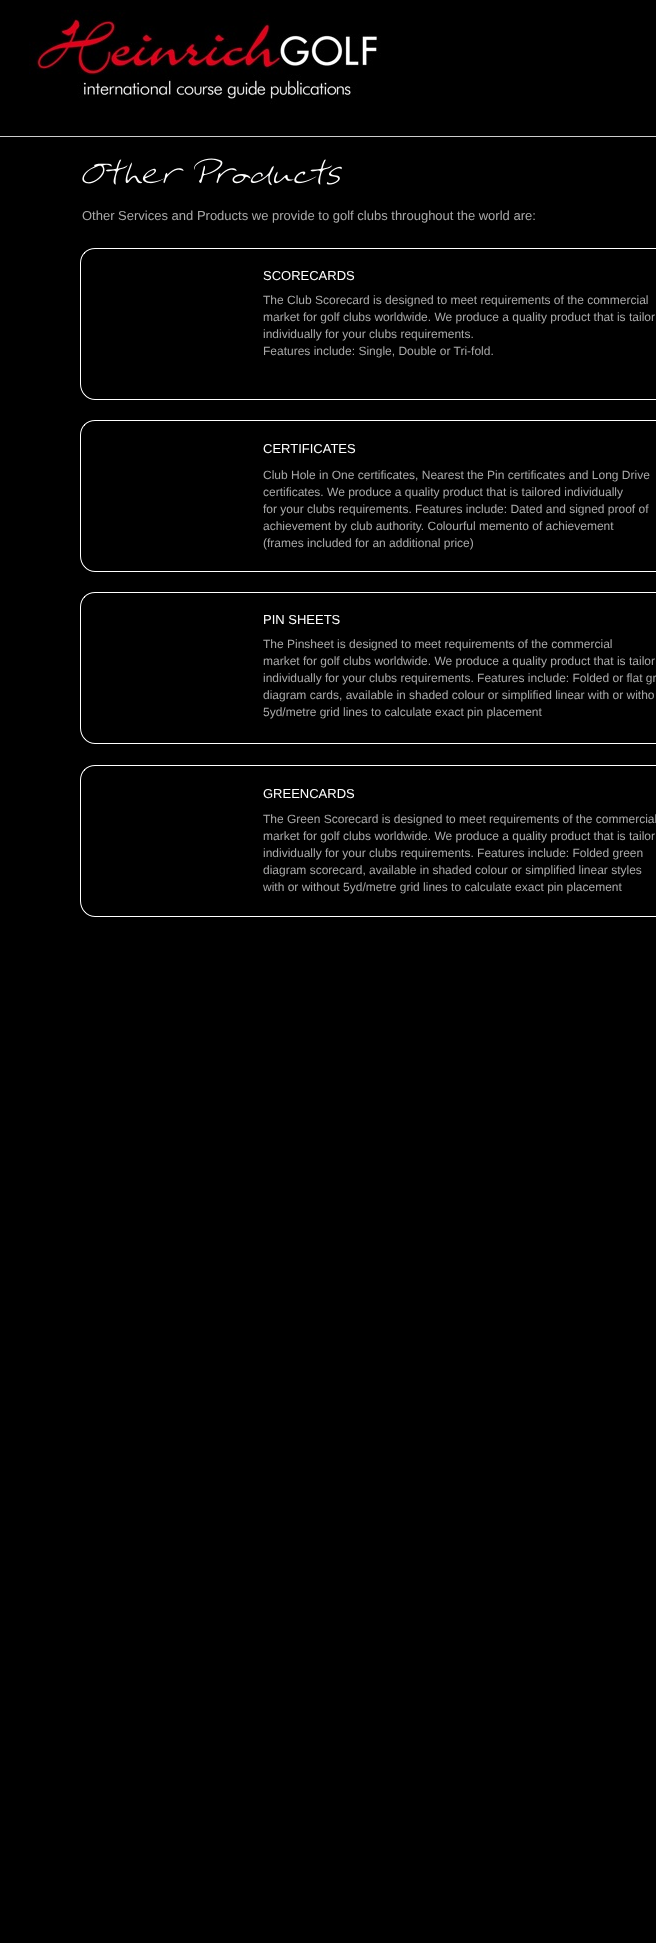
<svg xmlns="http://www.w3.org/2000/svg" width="656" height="1943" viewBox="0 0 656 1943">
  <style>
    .t1 { font: 13px Liberation Sans; fill: #a9a9a9; }
    .t2 { font: 13px Liberation Sans; fill: #fff; }
    .t3 { font: 12px Liberation Sans; fill: #a9a9a9; }
  </style>
  <rect width="100%" height="100%" fill="#000"/>
  <image x="29" y="10" width="352" height="94" href="images/1.png"/>
  <rect x="0" y="136" width="656" height="1" fill="#ccc"/>
  <image x="82" y="158" width="260" height="28" href="images/2.png"/>
  <text x="82" y="220" class="t1">Other Services and Products we provide to golf clubs throughout the world are:</text>
  <image x="80" y="248" width="576" height="152" href="images/3.png"/>
  <text x="263" y="280" class="t2">SCORECARDS</text>
  <text x="263" y="304" class="t3">The Club Scorecard is designed to meet requirements of the commercial</text>
  <text x="263" y="321" class="t3">market for golf clubs worldwide. We produce a quality product that is tailor</text>
  <text x="263" y="338" class="t3">individually for your clubs requirements.</text>
  <text x="263" y="355" class="t3">Features include: Single, Double or Tri-fold.</text>
  <image x="80" y="420" width="576" height="152" href="images/3.png"/>
  <text x="263" y="453" class="t2">CERTIFICATES</text>
  <text x="263" y="479" class="t3">Club Hole in One certificates, Nearest the Pin certificates and Long Drive</text>
  <text x="263" y="496" class="t3">certificates. We produce a quality product that is tailored individually</text>
  <text x="263" y="513" class="t3">for your clubs requirements. Features include: Dated and signed proof of</text>
  <text x="263" y="530" class="t3">achievement by club authority. Colourful memento of achievement</text>
  <text x="263" y="547" class="t3">(frames included for an additional price)</text>
  <image x="80" y="592" width="576" height="152" href="images/3.png"/>
  <text x="263" y="624" class="t2">PIN SHEETS</text>
  <text x="263" y="648" class="t3">The Pinsheet is designed to meet requirements of the commercial</text>
  <text x="263" y="665" class="t3">market for golf clubs worldwide. We produce a quality product that is tailor</text>
  <text x="263" y="682" class="t3">individually for your clubs requirements. Features include: Folded or flat gr</text>
  <text x="263" y="699" class="t3">diagram cards, available in shaded colour or simplified linear with or witho</text>
  <text x="263" y="716" class="t3">5yd/metre grid lines to calculate exact pin placement</text>
  <image x="80" y="765" width="576" height="152" href="images/3.png"/>
  <text x="263" y="798" class="t2">GREENCARDS</text>
  <text x="263" y="823" class="t3">The Green Scorecard is designed to meet requirements of the commercial</text>
  <text x="263" y="840" class="t3">market for golf clubs worldwide. We produce a quality product that is tailor</text>
  <text x="263" y="857" class="t3">individually for your clubs requirements. Features include: Folded green</text>
  <text x="263" y="874" class="t3">diagram scorecard, available in shaded colour or simplified linear styles</text>
  <text x="263" y="891" class="t3">with or without 5yd/metre grid lines to calculate exact pin placement</text>
</svg>
